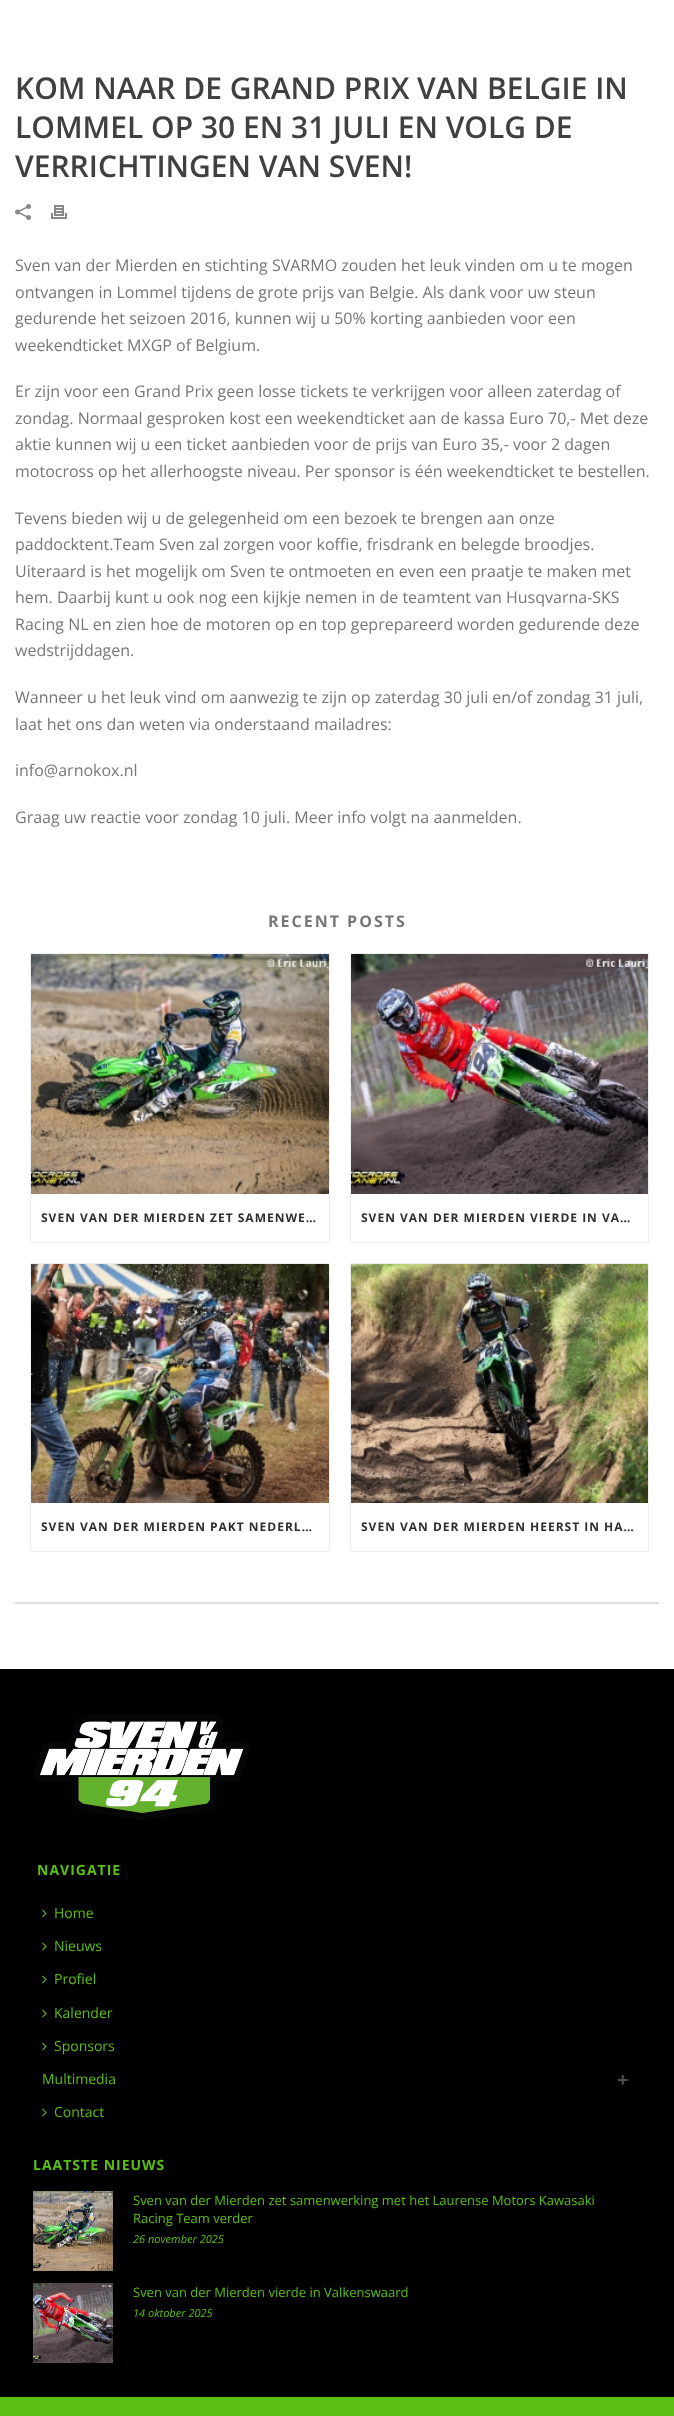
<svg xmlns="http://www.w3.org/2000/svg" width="674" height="2416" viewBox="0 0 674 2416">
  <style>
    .t1 { font: 600 30px Open Sans; fill: #404040; }
    .t2 { font: 16px Open Sans; fill: #777; }
    .t3 { font: bold 16px Open Sans; letter-spacing: 2px; fill: #777; }
    .t4 { font: bold 12px Open Sans; letter-spacing: 1px; fill: #2e2e2e; }
    .t5 { font: bold 14px Open Sans; letter-spacing: 1px; fill: #5cbf14; }
    .t6 { font: 14px Open Sans; fill: #5cbf14; }
    .t7 { font: bold 20px Open Sans; fill: #4d4d4d; }
    .t8 { font: 13px Open Sans; fill: #5cbf14; }
    .t9 { font: italic 11px Open Sans; fill: #5cbf14; }
  </style>
  <rect width="100%" height="100%" fill="#fff"/>
  <text x="15" y="99" class="t1">KOM NAAR DE GRAND PRIX VAN BELGIE IN</text>
  <text x="15" y="138" class="t1">LOMMEL OP 30 EN 31 JULI EN VOLG DE</text>
  <text x="15" y="177" class="t1">VERRICHTINGEN VAN SVEN!</text>
  <image x="15" y="204" width="16" height="16" href="images/1.png"/>
  <image x="51" y="205" width="16" height="14" href="images/2.png"/>
  <text x="15" y="271" class="t2">Sven van der Mierden en stichting SVARMO zouden het leuk vinden om u te mogen</text>
  <text x="15" y="298" class="t2">ontvangen in Lommel tijdens de grote prijs van Belgie. Als dank voor uw steun</text>
  <text x="15" y="324" class="t2">gedurende het seizoen 2016, kunnen wij u 50% korting aanbieden voor een</text>
  <text x="15" y="351" class="t2">weekendticket MXGP of Belgium.</text>
  <text x="15" y="397" class="t2">Er zijn voor een Grand Prix geen losse tickets te verkrijgen voor alleen zaterdag of</text>
  <text x="15" y="424" class="t2">zondag. Normaal gesproken kost een weekendticket aan de kassa Euro 70,- Met deze</text>
  <text x="15" y="450" class="t2">aktie kunnen wij u een ticket aanbieden voor de prijs van Euro 35,- voor 2 dagen</text>
  <text x="15" y="477" class="t2">motocross op het allerhoogste niveau. Per sponsor is één weekendticket te bestellen.</text>
  <text x="15" y="524" class="t2">Tevens bieden wij u de gelegenheid om een bezoek te brengen aan onze</text>
  <text x="15" y="550" class="t2">paddocktent.Team Sven zal zorgen voor koffie, frisdrank en belegde broodjes.</text>
  <text x="15" y="577" class="t2">Uiteraard is het mogelijk om Sven te ontmoeten en even een praatje te maken met</text>
  <text x="15" y="603" class="t2">hem. Daarbij kunt u ook nog een kijkje nemen in de teamtent van Husqvarna-SKS</text>
  <text x="15" y="630" class="t2">Racing NL en zien hoe de motoren op en top geprepareerd worden gedurende deze</text>
  <text x="15" y="656" class="t2">wedstrijddagen.</text>
  <text x="15" y="703" class="t2">Wanneer u het leuk vind om aanwezig te zijn op zaterdag 30 juli en/of zondag 31 juli,</text>
  <text x="15" y="730" class="t2">laat het ons dan weten via onderstaand mailadres:</text>
  <text x="15" y="776" class="t2">info@arnokox.nl</text>
  <text x="15" y="823" class="t2">Graag uw reactie voor zondag 10 juli. Meer info volgt na aanmelden.</text>
  <rect x="15" y="1602" width="644" height="2" fill="#ddd"/>
  <text x="268" y="927" class="t3">RECENT POSTS</text>
  <rect x="30.5" y="953.5" width="299" height="289" fill="none" stroke="#efefef"/>
  <image x="31" y="954" width="298" height="240" href="images/3.png"/>
  <text x="41" y="1222" class="t4">SVEN VAN DER MIERDEN ZET SAMENWE…</text>
  <rect x="350.5" y="953.5" width="298" height="289" fill="none" stroke="#efefef"/>
  <image x="351" y="954" width="297" height="240" href="images/4.png"/>
  <text x="361" y="1222" class="t4">SVEN VAN DER MIERDEN VIERDE IN VA…</text>
  <rect x="30.5" y="1263.5" width="299" height="288" fill="none" stroke="#efefef"/>
  <image x="31" y="1264" width="298" height="239" href="images/5.png"/>
  <text x="41" y="1531" class="t4">SVEN VAN DER MIERDEN PAKT NEDERL…</text>
  <rect x="350.5" y="1263.5" width="298" height="288" fill="none" stroke="#efefef"/>
  <image x="351" y="1264" width="297" height="239" href="images/6.png"/>
  <text x="361" y="1531" class="t4">SVEN VAN DER MIERDEN HEERST IN HA…</text>
  <rect x="0" y="1669" width="674" height="728" fill="#000"/>
  <image x="33" y="1715" width="217" height="105" href="images/7.png"/>
  <text x="37" y="1875" class="t5">NAVIGATIE</text>
  <image x="42" y="1909" width="5" height="9" href="images/8.png"/>
  <text x="54" y="1918" class="t6">Home</text>
  <image x="42" y="1942" width="5" height="9" href="images/8.png"/>
  <text x="54" y="1951" class="t6">Nieuws</text>
  <image x="42" y="1975" width="5" height="9" href="images/8.png"/>
  <text x="54" y="1984" class="t6">Profiel</text>
  <image x="42" y="2009" width="5" height="9" href="images/8.png"/>
  <text x="54" y="2018" class="t6">Kalender</text>
  <image x="42" y="2042" width="5" height="9" href="images/8.png"/>
  <text x="54" y="2051" class="t6">Sponsors</text>
  <text x="42" y="2084" class="t6">Multimedia</text>
  <text x="617" y="2087" class="t7">+</text>
  <image x="42" y="2108" width="5" height="9" href="images/8.png"/>
  <text x="54" y="2117" class="t6">Contact</text>
  <text x="33" y="2170" class="t5">LAATSTE NIEUWS</text>
  <image x="33" y="2191" width="80" height="80" href="images/9.png"/>
  <text x="133" y="2205" class="t8">Sven van der Mierden zet samenwerking met het Laurense Motors Kawasaki</text>
  <text x="133" y="2223" class="t8">Racing Team verder</text>
  <text x="133" y="2243" class="t9">26 november 2025</text>
  <image x="33" y="2283" width="80" height="80" href="images/10.png"/>
  <text x="133" y="2297" class="t8">Sven van der Mierden vierde in Valkenswaard</text>
  <text x="133" y="2317" class="t9">14 oktober 2025</text>
  <rect x="0" y="2397" width="674" height="19" fill="#5cbf14"/>
</svg>
